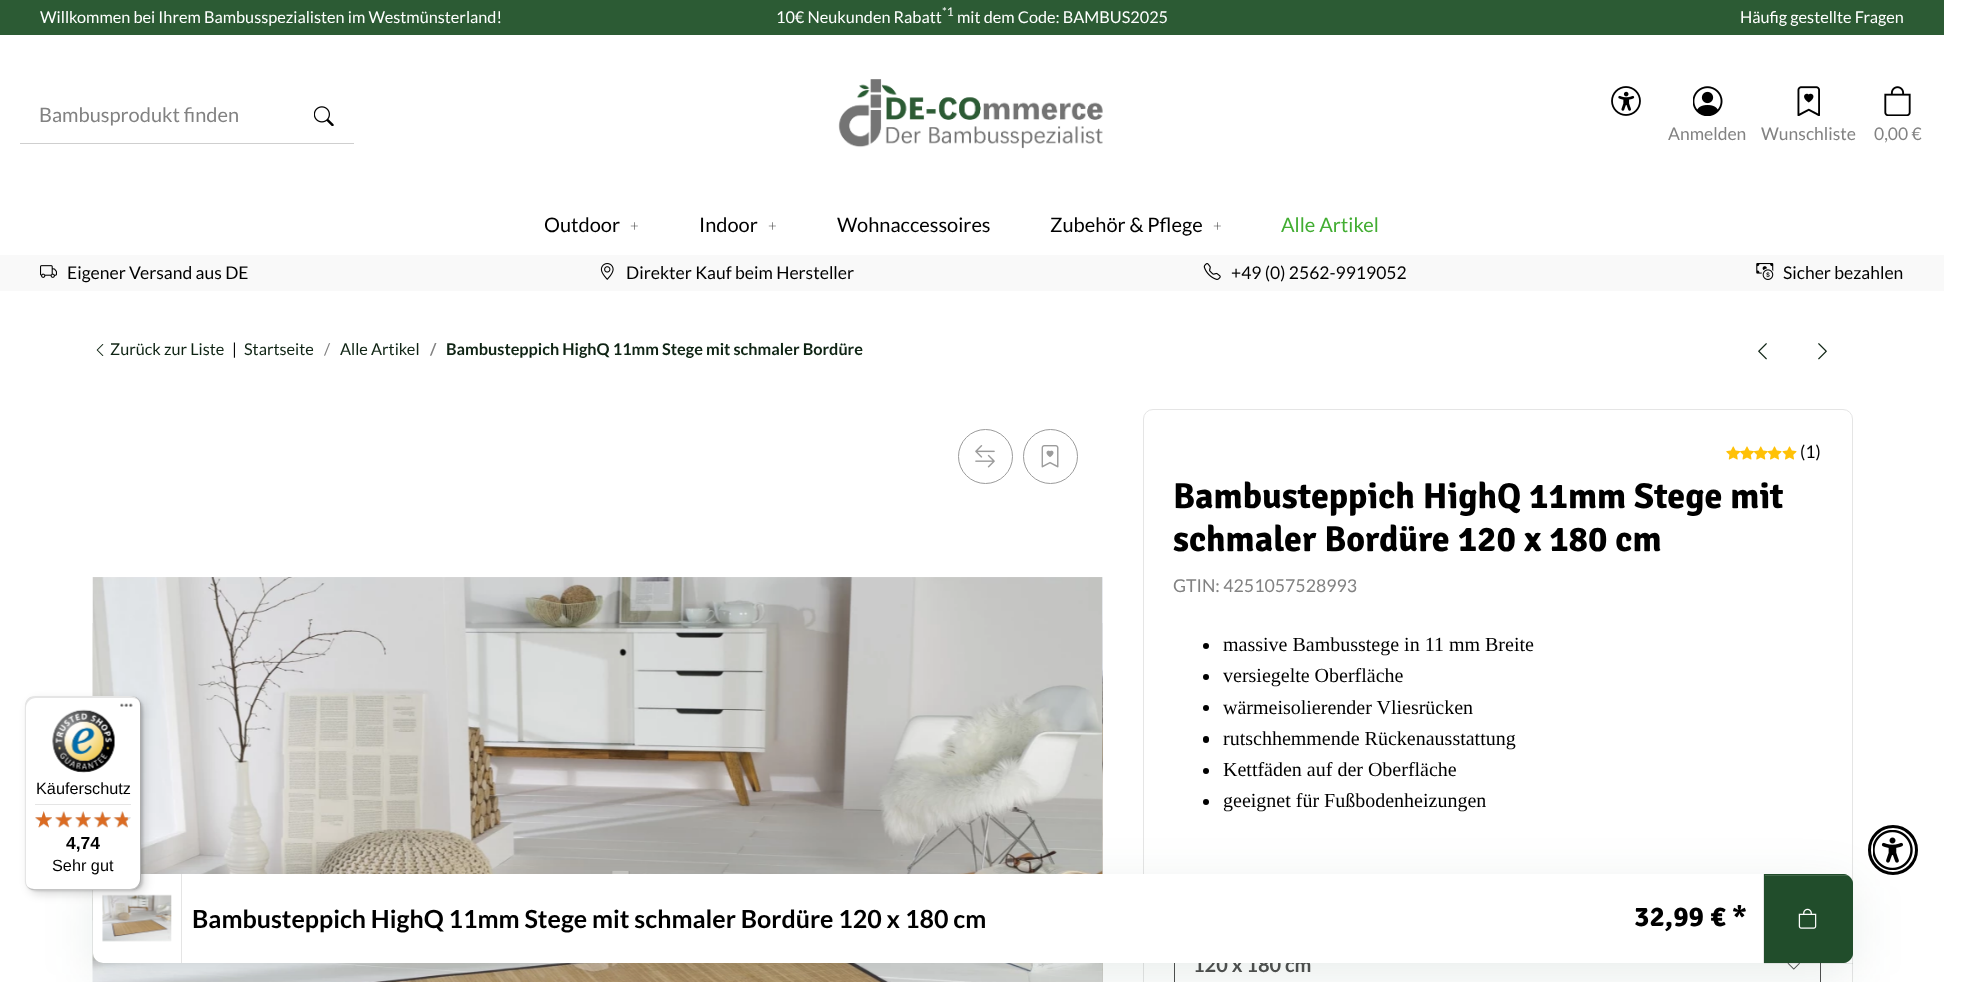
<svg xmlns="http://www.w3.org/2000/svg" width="1962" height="982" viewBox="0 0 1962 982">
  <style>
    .t1 { font: 16.25px Lato; fill: #fff; }
    .t2 { font: 12px Lato; fill: #fff; }
    .t3 { font: 20px Lato; fill: #828282; }
    .t4 { font: 17.5px Lato; fill: #828282; }
    .t5 { font: 20px Lato; fill: #000; }
    .t6 { font: 300 15px Lato; fill: #404040; }
    .t7 { font: 20px Lato; fill: #42ad32; }
    .t8 { font: 17.5px Lato; fill: #000; }
    .t9 { font: bold 20px Lato; fill: #4f4f4f; }
    .t10 { font: 16.25px Liberation Sans; fill: #000; }
    .t11 { font: bold 17.5px Liberation Sans; fill: #000; }
    .t12 { font: 16.25px Lato; fill: #0f2414; }
    .t13 { font: 16.25px Lato; fill: #000; }
    .t14 { font: 16.25px Lato; fill: #828282; }
    .t15 { font: bold 16.25px Lato; fill: #828282; }
    .t16 { font: bold 16.25px Lato; fill: #0f2414; }
    .t17 { font: bold 36px Signika; fill: #000; }
    .t18 { font: 17.75px Lato; fill: #828282; }
    .t19 { font: 20px Liberation Serif; fill: #000; }
    .t20 { font: bold 25px Lato; fill: #000; }
    .t21 { font: bold 28.5px Signika; fill: #000; }
  </style>
  <defs>
    <clipPath id="clip1"><path d="M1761 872H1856V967H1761ZM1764 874H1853V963H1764Z" clip-rule="evenodd"/></clipPath>
    <clipPath id="clip2"><rect x="93" y="874" width="1760" height="89" rx="10"/></clipPath>
  </defs>
  <rect width="100%" height="100%" fill="#fff"/>
  <rect x="0" y="0" width="1944" height="35" fill="#2c5b34"/>
  <text x="40" y="23" class="t1">Willkommen bei Ihrem Bambusspezialisten im Westmünsterland!</text>
  <text x="776" y="23" class="t1">10€ Neukunden Rabatt</text>
  <text x="942" y="16" class="t2">*1</text>
  <text x="957" y="23" class="t1">mit dem Code: BAMBUS2025</text>
  <text x="1740" y="23" class="t1">Häufig gestellte Fragen</text>
  <rect x="20" y="143" width="334" height="1" fill="#cfcfcf"/>
  <text x="39" y="122" class="t3">Bambusprodukt finden</text>
  <image x="314" y="106" width="20" height="20" href="images/1.png"/>
  <image x="838" y="79" width="265" height="70" href="images/2.png"/>
  <image x="1611" y="86" width="30" height="30" href="images/3.png"/>
  <image x="1693" y="86" width="30" height="30" href="images/4.png"/>
  <text x="1668" y="140" class="t4">Anmelden</text>
  <image x="1797" y="86" width="23" height="30" href="images/5.png"/>
  <text x="1761" y="140" class="t4">Wunschliste</text>
  <image x="1884" y="86" width="27" height="30" href="images/6.png"/>
  <text x="1874" y="140" class="t4">0,00 €</text>
  <text x="544" y="232" class="t5">Outdoor</text>
  <text x="630" y="231" class="t6">+</text>
  <text x="699" y="232" class="t5">Indoor</text>
  <text x="768" y="231" class="t6">+</text>
  <text x="837" y="232" class="t5">Wohnaccessoires</text>
  <text x="1050" y="232" class="t5">Zubehör &amp; Pflege</text>
  <text x="1213" y="231" class="t6">+</text>
  <text x="1281" y="232" class="t7">Alle Artikel</text>
  <rect x="0" y="255" width="1944" height="36" fill="#f9f9f9"/>
  <image x="40" y="265" width="17" height="13" href="images/7.png"/>
  <text x="67" y="279" class="t8">Eigener Versand aus DE</text>
  <image x="600" y="263" width="14" height="17" href="images/8.png"/>
  <text x="626" y="279" class="t8">Direkter Kauf beim Hersteller</text>
  <image x="1203" y="263" width="18" height="17" href="images/9.png"/>
  <text x="1231" y="279" class="t8">+49 (0) 2562-9919052</text>
  <image x="1756" y="263" width="18" height="17" href="images/10.png"/>
  <text x="1783" y="279" class="t8">Sicher bezahlen</text>
  <image x="92" y="577" width="1011" height="405" href="images/28.png"/>
  <image x="1102" y="577" width="1" height="405" href="images/29.png"/>
  <rect x="1143.5" y="409.5" width="709" height="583" rx="9.5" fill="none" stroke="#e5e5e5"/>
  <rect x="1174.5" y="936.5" width="646" height="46" fill="none" stroke="#4f4f4f"/>
  <text x="1193" y="972" class="t9">120 x 180 cm</text>
  <image x="1787" y="963" width="13" height="7" href="images/35.png"/>
  <rect x="93" y="886" width="1760" height="89" rx="10" fill="#1a503c1a" filter="blur(25px)"/>
  <rect x="93" y="874" width="1760" height="89" rx="10" fill="#fff"/>
  <image x="102" y="894" width="70" height="48" href="images/36.png"/>
  <rect x="29" y="700" width="116" height="194" rx="10" fill="#00000026" filter="blur(5px)"/>
  <rect x="26" y="698" width="117" height="193" rx="10" fill="#00000026" filter="blur(1px)"/>
  <rect x="25" y="696" width="116" height="194" rx="10" fill="#fff"/>
  <path d="M36 698H132C135 698 138 699 140 702C138 698 135 696 131 696H35C29 696 25 700 25 706V880C25 883 26 886 28 888C27 886 26 884 26 881V708C26 702 31 698 36 698Z" fill="#0000001a"/>
  <path d="M27 887C29 889 32 890 35 890H131C137 890 141 886 141 880V706C141 704 140 701 139 700C140 701 140 703 140 705V879C140 884 136 889 130 889H34C31 889 29 888 27 887Z" fill="#00000033"/>
  <path d="M27 886C29 889 32 890 35 890H131C137 890 141 886 141 880V706C141 700 137 696 131 696H130C136 696 140 700 140 706V879C140 885 136 889 130 889H34C32 889 29 888 27 886Z" fill="#32323233"/>
  <image x="120" y="703" width="13" height="4" href="images/11.png"/>
  <path d="M27 886C29 889 32 890 35 890H131C137 890 141 886 141 880V879C141 885 136 889 131 889H34C32 889 29 888 27 886ZM139 700C137 697 134 696 131 696C134 696 137 697 139 700Z" fill="#ffffff4d" fill-rule="evenodd"/>
  <image x="52" y="709" width="63" height="64" href="images/12.png"/>
  <text x="36" y="794" class="t10">Käuferschutz</text>
  <rect x="35" y="804" width="96" height="1" fill="#e5e5e5"/>
  <image x="35" y="811" width="17" height="17" href="images/13.png"/>
  <image x="55" y="811" width="17" height="16" href="images/14.png"/>
  <image x="75" y="811" width="16" height="17" href="images/15.png"/>
  <image x="94" y="812" width="17" height="15" href="images/16.png"/>
  <image x="113" y="811" width="18" height="17" href="images/17.png"/>
  <image x="35" y="811" width="17" height="17" href="images/18.png"/>
  <image x="55" y="811" width="18" height="17" href="images/19.png"/>
  <image x="75" y="811" width="16" height="17" href="images/20.png"/>
  <image x="93" y="811" width="18" height="17" href="images/21.png"/>
  <image x="113" y="811" width="15" height="17" href="images/22.png"/>
  <text x="66" y="849" class="t11">4,74</text>
  <text x="52" y="871" class="t10">Sehr gut</text>
  <image x="96" y="344" width="8" height="12" href="images/23.png"/>
  <text x="110" y="355" class="t12">Zurück zur Liste</text>
  <text x="232" y="355" class="t13">|</text>
  <text x="244" y="355" class="t12">Startseite</text>
  <text x="324" y="355" class="t14">/</text>
  <text x="340" y="355" class="t12">Alle Artikel</text>
  <text x="430" y="355" class="t15">/</text>
  <text x="446" y="355" class="t16">Bambusteppich HighQ 11mm Stege mit schmaler Bordüre</text>
  <image x="1758" y="343" width="9" height="17" href="images/24.png"/>
  <image x="1818" y="343" width="9" height="17" href="images/25.png"/>
  <circle cx="985.5" cy="456.5" r="27" fill="none" stroke="#9b9b9b"/>
  <image x="975" y="445" width="20" height="23" href="images/26.png"/>
  <circle cx="1050.5" cy="456.5" r="27" fill="none" stroke="#9b9b9b"/>
  <image x="1041" y="445" width="18" height="23" href="images/27.png"/>
  <image x="1726" y="446" width="15" height="14" href="images/30.png"/>
  <image x="1740" y="446" width="14" height="14" href="images/31.png"/>
  <image x="1753" y="446" width="15" height="14" href="images/32.png"/>
  <image x="1767" y="446" width="15" height="14" href="images/33.png"/>
  <image x="1782" y="446" width="15" height="14" href="images/34.png"/>
  <text x="1800" y="458" class="t8">(1)</text>
  <text x="1173" y="508" class="t17">Bambusteppich HighQ 11mm Stege mit</text>
  <text x="1173" y="551" class="t17">schmaler Bordüre 120 x 180 cm</text>
  <text x="1173" y="592" class="t18">GTIN: 4251057528993</text>
  <circle cx="1206" cy="646" r="3" fill="#000"/>
  <text x="1223" y="651" class="t19">massive Bambusstege in 11 mm Breite</text>
  <circle cx="1206" cy="677" r="3" fill="#000"/>
  <text x="1223" y="682" class="t19">versiegelte Oberfläche</text>
  <circle cx="1206" cy="708" r="3" fill="#000"/>
  <text x="1223" y="714" class="t19">wärmeisolierender Vliesrücken</text>
  <rect x="1203" y="736" width="6" height="7" rx="3" fill="#000"/>
  <text x="1223" y="745" class="t19">rutschhemmende Rückenausstattung</text>
  <circle cx="1206" cy="771" r="3" fill="#000"/>
  <text x="1223" y="776" class="t19">Kettfäden auf der Oberfläche</text>
  <circle cx="1206" cy="802" r="3" fill="#000"/>
  <text x="1223" y="807" class="t19">geeignet für Fußbodenheizungen</text>
  <rect x="181" y="874" width="1" height="89" fill="#e5e5e5"/>
  <text x="192" y="928" class="t20">Bambusteppich HighQ 11mm Stege mit schmaler Bordüre 120 x 180 cm</text>
  <text x="1634" y="926" class="t21">32,99 € *</text>
  <rect x="1763" y="874" width="1" height="89" fill="#e5e5e5"/>
  <g clip-path="url(#clip1)">
    <rect x="1764" y="875" width="89" height="89" fill="#00000012" filter="blur(0.5px)"/>
  </g>
  <path d="M1764 874H1843C1848.5 874 1853 878.5 1853 884V953C1853 958.5 1848.5 963 1843 963H1764Z" fill="#214d2b"/>
  <g clip-path="url(#clip2)">
    <rect x="1765" y="875" width="86" height="1" fill="#ffffff26"/>
  </g>
  <path d="M1764 874V963H1843L1847 962H1765V875H1847L1843 874ZM1853 884L1852 880V957L1853 953Z" fill="#214d2b" fill-rule="evenodd"/>
  <image x="1798" y="908" width="19" height="21" href="images/37.png"/>
  <circle cx="1893" cy="850" r="23.5" fill="none" stroke="#000" stroke-width="3"/>
  <image x="1873" y="830" width="40" height="40" href="images/38.png"/>
</svg>
